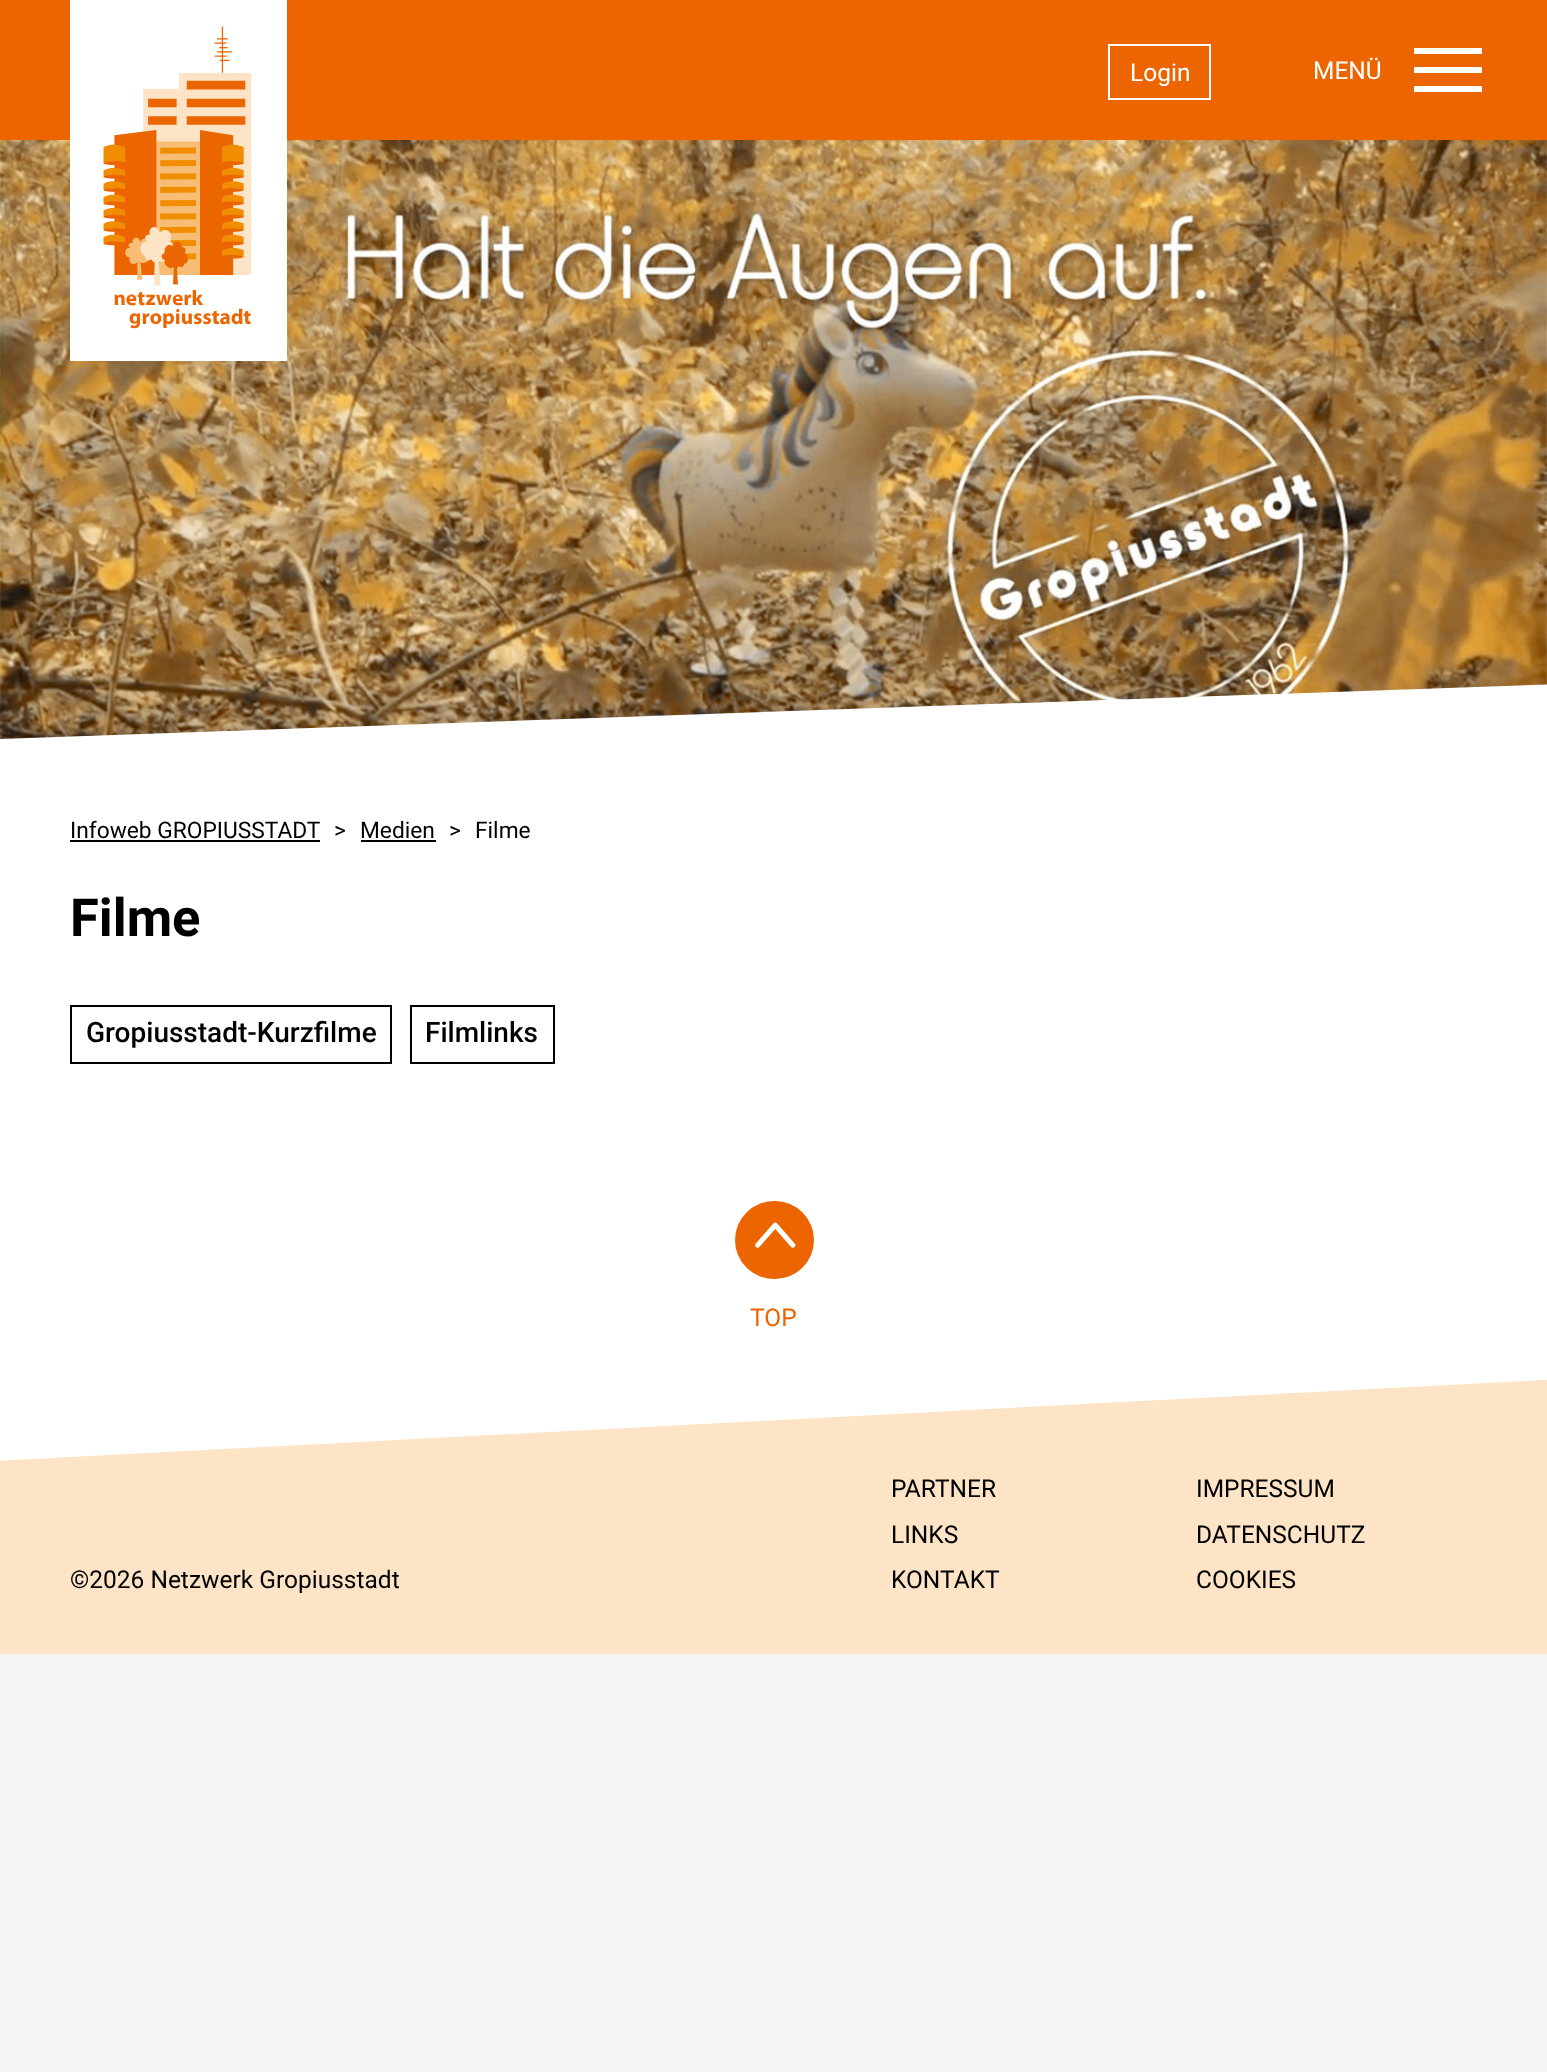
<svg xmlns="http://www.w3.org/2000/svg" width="1547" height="2072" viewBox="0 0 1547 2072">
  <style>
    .t1 { font: 24.5px Roboto; fill: #fff; }
    .t2 { font: 22.75px Roboto; fill: #000; }
    .t3 { font: bold 52.5px Roboto; fill: #000; }
    .t4 { font: 500 28px Roboto; fill: #000; }
    .t5 { font: 24.5px Roboto; fill: #ed6501; }
    .t6 { font: 24.5px Roboto; fill: #000; }
  </style>
  <defs>
    <clipPath id="clip1"><rect x="0" y="1367" width="1547" height="287"/></clipPath>
  </defs>
  <rect width="100%" height="100%" fill="#f4f4f4"/>
  <rect x="0" y="766" width="1547" height="695" fill="#fff"/>
  <rect x="0" y="0" width="1547" height="140" fill="#ed6501"/>
  <image x="0" y="140" width="1547" height="599" href="images/2.png"/>
  <rect x="70" y="0" width="217" height="361" fill="#fff"/>
  <image x="103" y="26" width="149" height="303" href="images/1.png"/>
  <rect x="1109" y="45" width="101" height="54" fill="none" stroke="#fff" stroke-width="2"/>
  <text x="1130" y="81" class="t1">Login</text>
  <text x="1313" y="79" class="t1">MENÜ</text>
  <path d="M1414 48H1482V54H1414ZM1414 67H1482V73H1414ZM1414 86H1482V92H1414Z" fill="#fff"/>
  <text x="70" y="838" class="t2">Infoweb GROPIUSSTADT</text>
  <text x="360" y="838" class="t2">Medien</text>
  <text x="475" y="838" class="t2">Filme</text>
  <path d="M-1 739L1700 679L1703 761L2 821Z" fill="#fff"/>
  <rect x="70" y="840" width="250" height="2" fill="#000"/>
  <text x="334" y="838" class="t2">&gt;</text>
  <rect x="361" y="840" width="75" height="2" fill="#000"/>
  <text x="449" y="838" class="t2">&gt;</text>
  <text x="70" y="936" class="t3">Filme</text>
  <rect x="71" y="1006" width="320" height="57" fill="none" stroke="#000" stroke-width="2"/>
  <text x="86" y="1042" class="t4">Gropiusstadt-Kurzfilme</text>
  <rect x="411" y="1006" width="143" height="57" fill="none" stroke="#000" stroke-width="2"/>
  <text x="425" y="1042" class="t4">Filmlinks</text>
  <rect x="735" y="1201" width="79" height="78" rx="39" fill="#ed6501"/>
  <image x="755" y="1222" width="41" height="26" href="images/3.png"/>
  <text x="750" y="1326" class="t5">TOP</text>
  <g clip-path="url(#clip1)">
    <path d="M-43 1463L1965 1358L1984 1730L-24 1835Z" fill="#fde4c6"/>
  </g>
  <text x="70" y="1588" class="t6">©2026 Netzwerk Gropiusstadt</text>
  <text x="891" y="1497" class="t6">PARTNER</text>
  <text x="1196" y="1497" class="t6">IMPRESSUM</text>
  <text x="891" y="1543" class="t6">LINKS</text>
  <text x="1196" y="1543" class="t6">DATENSCHUTZ</text>
  <text x="891" y="1588" class="t6">KONTAKT</text>
  <text x="1196" y="1588" class="t6">COOKIES</text>
</svg>
